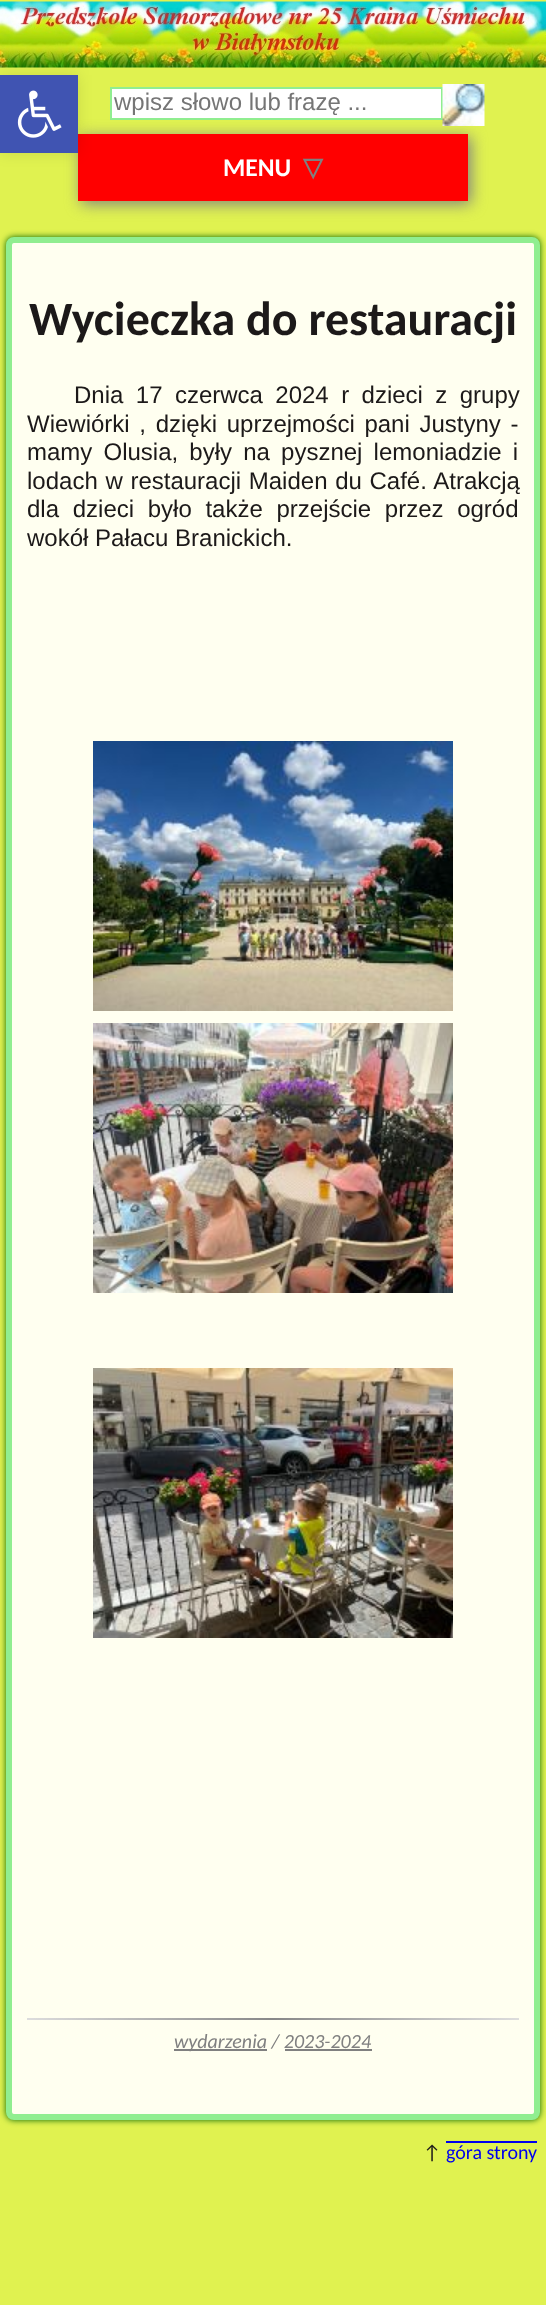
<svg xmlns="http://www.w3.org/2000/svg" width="546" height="2305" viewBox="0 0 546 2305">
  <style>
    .t1 { font: 24px Liberation Sans; fill: #757575; }
    .t2 { font: bold 25.5px Carlito; fill: #fff; }
    .t3 { font: bold 25.5px DejaVu Sans; fill: #808080; }
    .t4 { font: bold 48px Carlito; fill: #1c1919; }
    .t5 { font: 24px Liberation Sans; fill: #1c1919; }
    .t6 { font: italic 20px Carlito; fill: #808080; }
    .t7 { font: 20px Carlito; fill: #1c1919; }
    .t8 { font: 20px Carlito; fill: #00e; }
  </style>
  <defs>
    <linearGradient id="g1" gradientUnits="userSpaceOnUse" x1="27" y1="2018" x2="519" y2="2018"><stop offset="0" stop-color="#ddd"/><stop offset="0.5" stop-color="#888"/><stop offset="1" stop-color="#ddd"/></linearGradient>
  </defs>
  <rect width="100%" height="100%" fill="#e0f250"/>
  <image x="0" y="1" width="546" height="67" href="images/2.png"/>
  <rect x="111" y="88" width="331" height="31" fill="#fff" stroke="#90ee90" stroke-width="2"/>
  <image x="442" y="84" width="43" height="42" href="images/3.png"/>
  <rect x="81" y="137" width="390" height="67" fill="#808080" filter="blur(7.5px)"/>
  <rect x="78" y="134" width="390" height="67" fill="#f00"/>
  <rect x="0" y="75" width="78" height="78" fill="#0000001a" filter="blur(7.5px)"/>
  <rect x="0" y="75" width="78" height="78" fill="#4054b2"/>
  <image x="17" y="90" width="45" height="48" href="images/1.png"/>
  <text x="114" y="110" class="t1">wpisz słowo lub frazę ...</text>
  <text x="223" y="176" class="t2">MENU</text>
  <text x="303" y="176" class="t3">▽</text>
  <rect x="6" y="237" width="534" height="1883" rx="8" fill="#006400" filter="blur(3px)"/>
  <rect x="9" y="240" width="528" height="1877" rx="5" fill="#fffff0" stroke="#90ee90" stroke-width="6"/>
  <text x="29" y="335" class="t4">Wycieczka do restauracji</text>
  <text x="74" y="403" word-spacing="5.75" class="t5">Dnia 17 czerwca 2024 r dzieci z grupy</text>
  <text x="27" y="432" word-spacing="3" class="t5">Wiewiórki , dzięki uprzejmości pani Justyny -</text>
  <text x="27" y="460" word-spacing="4.5" class="t5">mamy Olusia, były na pysznej lemoniadzie i</text>
  <text x="27" y="489" word-spacing="1" class="t5">lodach w restauracji Maiden du Café. Atrakcją</text>
  <text x="27" y="517" word-spacing="7" class="t5">dla dzieci było także przejście przez ogród</text>
  <text x="27" y="546" class="t5">wokół Pałacu Branickich.</text>
  <image x="93" y="741" width="360" height="270" href="images/4.png"/>
  <image x="93" y="1023" width="360" height="270" href="images/5.png"/>
  <image x="93" y="1368" width="360" height="270" href="images/6.png"/>
  <rect x="27" y="2018" width="492" height="2" fill="url(#g1)"/>
  <rect x="174" y="2049" width="93" height="2" fill="#808080"/>
  <text x="174" y="2048" class="t6">wydarzenia / 2023-2024</text>
  <rect x="285" y="2049" width="87" height="2" fill="#808080"/>
  <text x="423" y="2159" class="t7">↑</text>
  <text x="446" y="2159" class="t8">góra strony</text>
  <rect x="446" y="2141" width="91" height="2" fill="#00e"/>
</svg>
